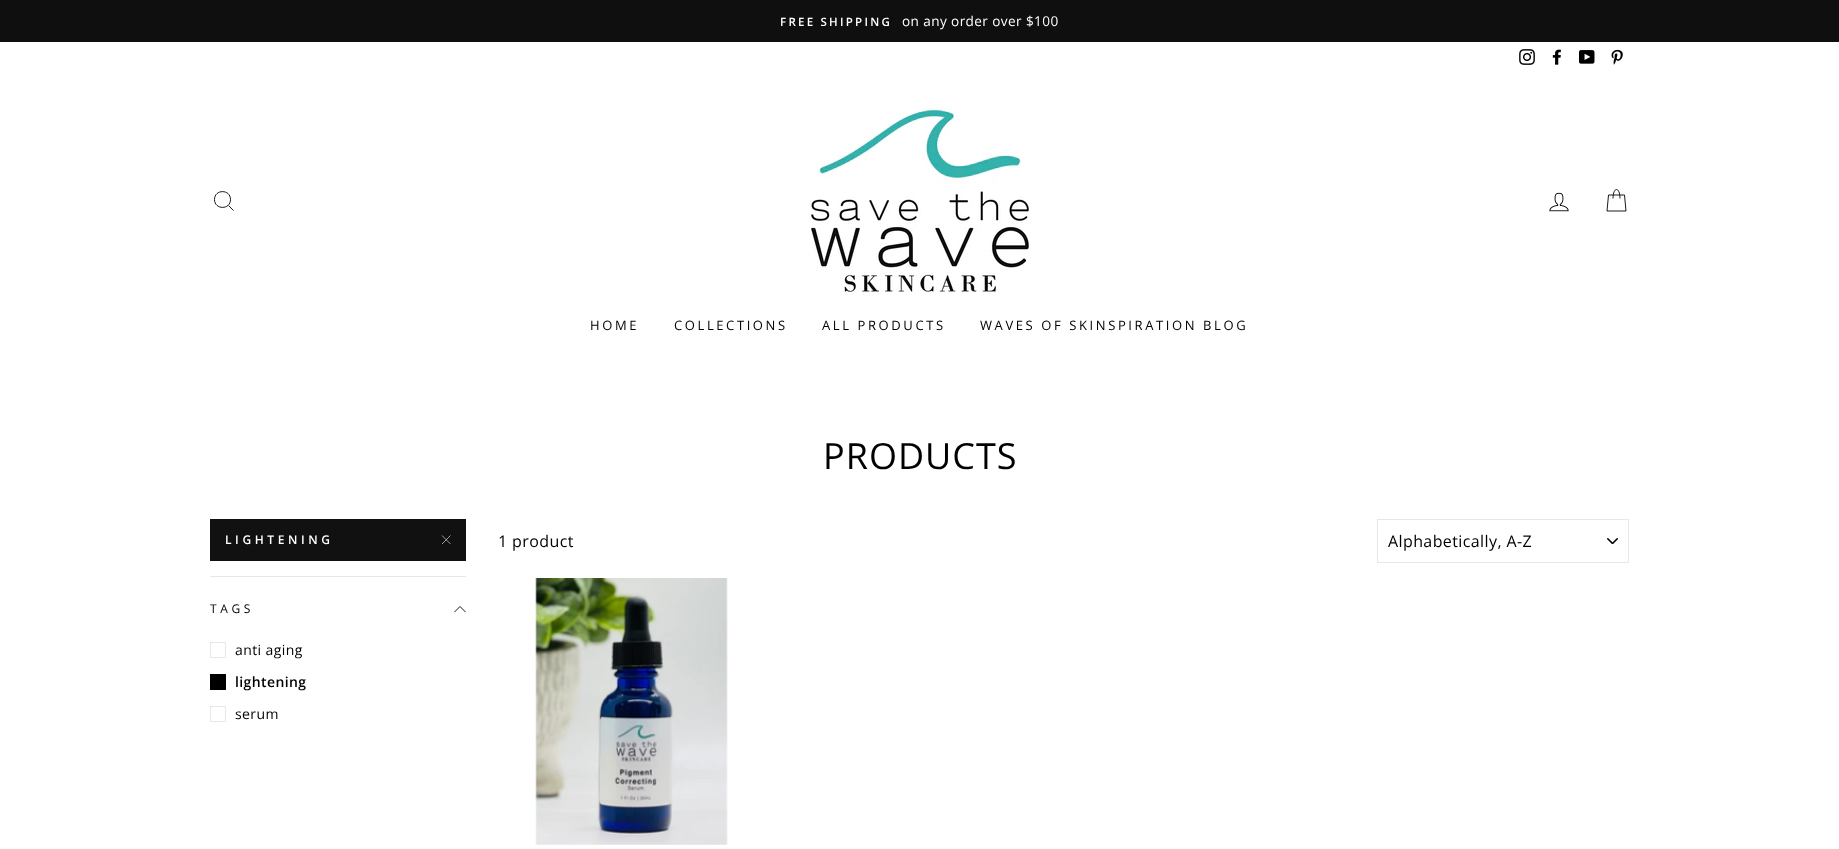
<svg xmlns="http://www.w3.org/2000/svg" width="1839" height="849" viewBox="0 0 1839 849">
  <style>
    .t1 { font: 600 11.5px Open Sans; letter-spacing: 2.25px; fill: #fff; }
    .t2 { font: 13.6px Open Sans; letter-spacing: 0.4px; fill: #fff; }
    .t3 { font: 13px Open Sans; letter-spacing: 2.6px; fill: #000; }
    .t4 { font: 36px Open Sans; letter-spacing: 1px; fill: #000; }
    .t5 { font: 600 12px Open Sans; letter-spacing: 3.6px; fill: #fff; }
    .t6 { font: 12px Open Sans; letter-spacing: 3.6px; fill: #000; }
    .t7 { font: 14px Open Sans; letter-spacing: 0.4px; fill: #000; }
    .t8 { font: 600 14px Open Sans; letter-spacing: 0.4px; fill: #000; }
    .t9 { font: 16px Open Sans; letter-spacing: 0.4px; fill: #000; }
  </style>
  <rect width="100%" height="100%" fill="#fff"/>
  <rect x="0" y="0" width="1839" height="42" fill="#0f0f0f"/>
  <text x="780" y="26" class="t1">FREE SHIPPING</text>
  <text x="902" y="26" class="t2">on any order over $100</text>
  <image x="1519" y="49" width="16" height="16" href="images/1.png"/>
  <image x="1552" y="49" width="9" height="16" href="images/2.png"/>
  <image x="1579" y="50" width="16" height="14" href="images/3.png"/>
  <image x="1611" y="49" width="12" height="16" href="images/4.png"/>
  <path d="M230.5 199.5C230.5 210 214.5 210 214.5 199.5C214.5 189 230.5 189 230.5 199.5ZM233.5 210.5L228.5 205.5" fill="none" stroke="#000" stroke-width="0.9"/>
  <image x="809" y="106" width="220" height="186" href="images/5.png"/>
  <image x="1549" y="192" width="20" height="20" href="images/6.png"/>
  <path d="M1613 198.5C1613 186.5 1620 186.5 1620 198.5M1608.5 195H1624.5L1626 211H1607Z" fill="none" stroke="#000" stroke-width="0.9"/>
  <text x="590" y="330" class="t3">HOME</text>
  <text x="674" y="330" class="t3">COLLECTIONS</text>
  <text x="822" y="330" class="t3">ALL PRODUCTS</text>
  <text x="980" y="330" class="t3">WAVES OF SKINSPIRATION BLOG</text>
  <text x="823" y="469" class="t4">PRODUCTS</text>
  <rect x="210" y="519" width="256" height="42" fill="#111"/>
  <text x="225" y="544" class="t5">LIGHTENING</text>
  <path d="M442 535.5L450.5 544M450.5 535.5L442 544" fill="none" stroke="#fff" stroke-width="0.6"/>
  <rect x="210" y="576" width="256" height="1" fill="#e8e8e1"/>
  <text x="210" y="613" class="t6">TAGS</text>
  <path d="M454.5 612L460 606.5L465.5 612" fill="none" stroke="#000" stroke-width="0.9"/>
  <rect x="210.5" y="642.5" width="15" height="15" fill="none" stroke="#e8e8e1"/>
  <text x="235" y="655" class="t7">anti aging</text>
  <rect x="210" y="674" width="16" height="16" fill="#000"/>
  <text x="235" y="687" class="t8">lightening</text>
  <rect x="210.5" y="706.5" width="15" height="15" fill="none" stroke="#e8e8e1"/>
  <text x="235" y="719" class="t7">serum</text>
  <text x="498" y="547" class="t9">1 product</text>
  <image x="1607" y="538" width="11" height="6" href="images/7.png"/>
  <rect x="1377.5" y="519.5" width="251" height="43" fill="none" stroke="#e8e8e1"/>
  <text x="1388" y="547" class="t9">Alphabetically, A-Z</text>
  <image x="535" y="578" width="193" height="267" href="images/8.png"/>
</svg>
